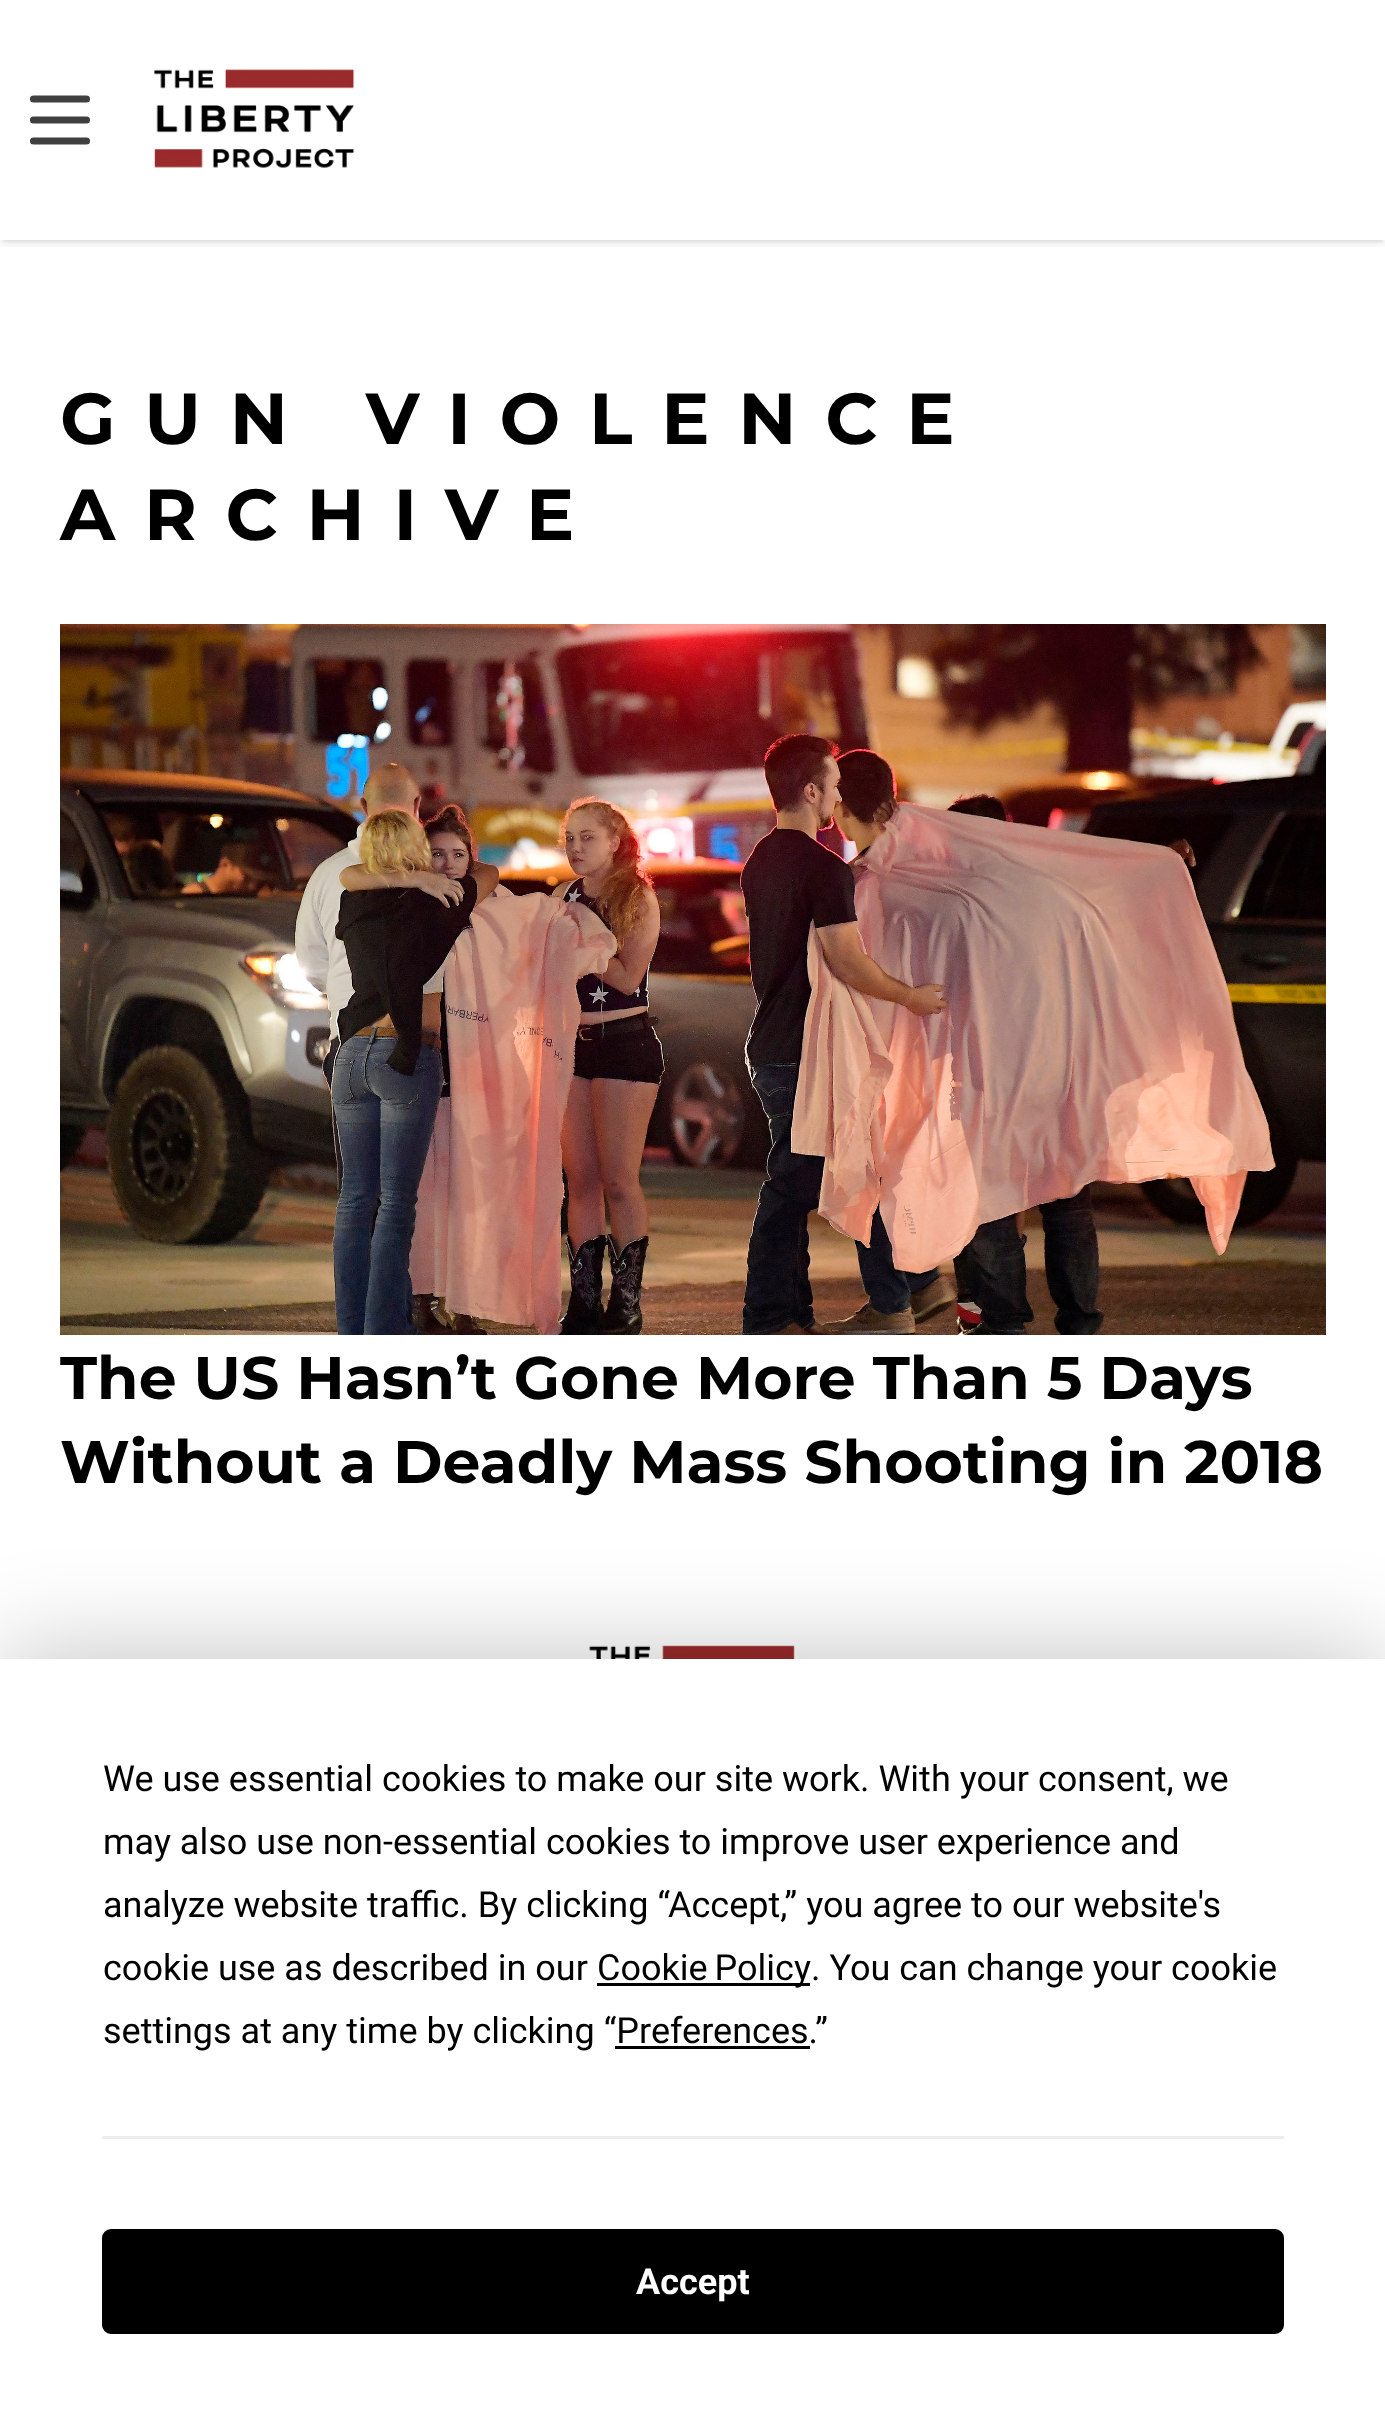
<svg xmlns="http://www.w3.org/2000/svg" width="1385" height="2423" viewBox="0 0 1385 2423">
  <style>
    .t1 { font: bold 72px Montserrat; letter-spacing: 28.75px; fill: #000; }
    .t2 { font: bold 60px Montserrat; fill: #000; }
    .t3 { font: 36px Roboto; fill: #000; }
    .t4 { font: bold 36px Roboto; fill: #fff; }
  </style>
  <defs>
    <clipPath id="clip1"><rect x="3" y="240" width="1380" height="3"/></clipPath>
    <clipPath id="clip2"><rect x="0" y="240" width="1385" height="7"/></clipPath>
  </defs>
  <rect width="100%" height="100%" fill="#fff"/>
  <g clip-path="url(#clip1)">
    <rect x="3" y="6" width="1380" height="234" fill="#0000001a" filter="blur(3px)"/>
  </g>
  <g clip-path="url(#clip2)">
    <rect x="0" y="3" width="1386" height="240" fill="#0000001a" filter="blur(4.5px)"/>
  </g>
  <path d="M33.5 99H86.5M33.5 120H86.5M33.5 141H86.5" fill="none" stroke="#404040" stroke-width="7.1" stroke-linecap="round" stroke-linejoin="round"/>
  <image x="154" y="69" width="201" height="99" href="images/1.png"/>
  <text x="60" y="444" class="t1">GUN VIOLENCE</text>
  <text x="60" y="540" class="t1">ARCHIVE</text>
  <image x="60" y="624" width="1266" height="711" href="images/2.png"/>
  <text x="60" y="1399" class="t2">The US Hasn’t Gone More Than 5 Days</text>
  <text x="60" y="1483" class="t2">Without a Deadly Mass Shooting in 2018</text>
  <image x="589" y="1645" width="206" height="14" href="images/3.png"/>
  <rect x="0" y="1659" width="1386" height="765" fill="#00000040" filter="blur(52.5px)"/>
  <rect x="0" y="1659" width="1385" height="764" fill="#fff"/>
  <text x="103" y="1791" class="t3">We use essential cookies to make our site work. With your consent, we</text>
  <text x="103" y="1854" class="t3">may also use non-essential cookies to improve user experience and</text>
  <text x="103" y="1917" class="t3">analyze website traffic. By clicking “Accept,” you agree to our website's</text>
  <text x="103" y="1980" class="t3">cookie use as described in our</text>
  <rect x="597" y="1983" width="213" height="3" fill="#000"/>
  <text x="597" y="1980" word-spacing="-2" class="t3">Cookie Policy</text>
  <text x="811" y="1980" class="t3">. You can change your cookie</text>
  <text x="103" y="2043" class="t3">settings at any time by clicking “Preferences.”</text>
  <rect x="615" y="2046" width="195" height="3" fill="#000"/>
  <rect x="102" y="2136" width="1182" height="3" fill="#ededef"/>
  <rect x="103.5" y="2230.5" width="1179" height="102" rx="7.5" fill="#000" stroke="#000" stroke-width="3"/>
  <text x="636" y="2294" class="t4">Accept</text>
</svg>
